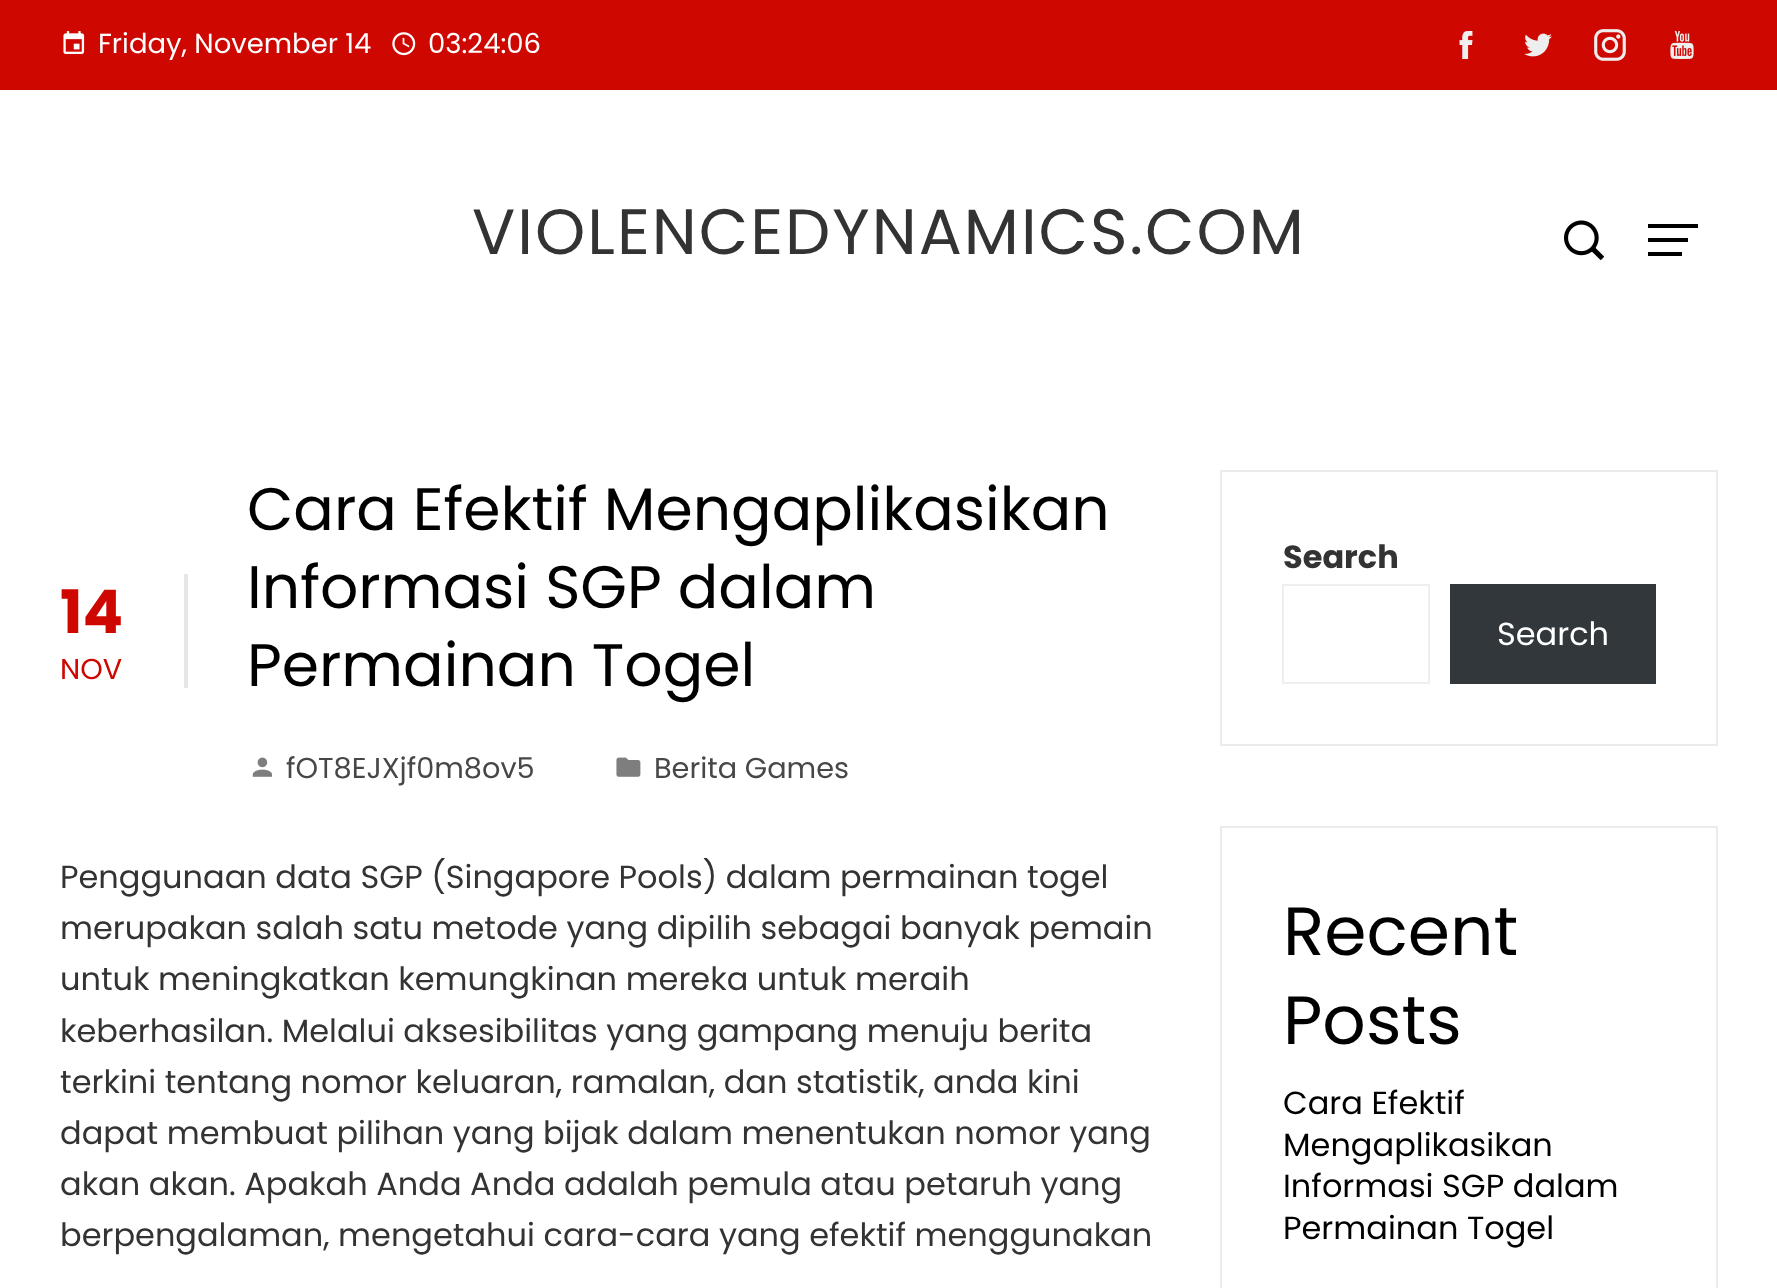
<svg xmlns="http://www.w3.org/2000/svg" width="1777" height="1288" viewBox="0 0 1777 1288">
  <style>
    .t1 { font: 27.5px Poppins; fill: #fff; }
    .t2 { font: 64px Poppins; letter-spacing: 2px; fill: #333; }
    .t3 { font: bold 60px Poppins; fill: #cf0701; }
    .t4 { font: 28.75px Poppins; fill: #cf0701; }
    .t5 { font: 60px Poppins; fill: #000; }
    .t6 { font: 28.75px Poppins; fill: #474747; }
    .t7 { font: 32px Poppins; fill: #333; }
    .t8 { font: bold 32px Poppins; fill: #333; }
    .t9 { font: 32px Poppins; fill: #fff; }
    .t10 { font: 68px Poppins; fill: #000; }
    .t11 { font: 32px Poppins; fill: #000; }
  </style>
  <rect width="100%" height="100%" fill="#fff"/>
  <rect x="0" y="0" width="1777" height="90" fill="#cf0701"/>
  <image x="63" y="31" width="22" height="23" href="images/1.png"/>
  <text x="98" y="53" class="t1">Friday, November 14</text>
  <image x="392" y="32" width="24" height="24" href="images/2.png"/>
  <text x="428" y="53" class="t1">03:24:06</text>
  <image x="1459" y="31" width="14" height="28" href="images/3.png"/>
  <image x="1524" y="33" width="28" height="24" href="images/4.png"/>
  <image x="1594" y="29" width="32" height="32" href="images/5.png"/>
  <image x="1670" y="31" width="24" height="28" href="images/6.png"/>
  <text x="472" y="254" class="t2">VIOLENCEDYNAMICS.COM</text>
  <image x="1564" y="220" width="40" height="40" href="images/7.png"/>
  <rect x="1648" y="224" width="50" height="4" fill="#000"/>
  <rect x="1648" y="238" width="40" height="4" fill="#000"/>
  <rect x="1648" y="252" width="34" height="4" fill="#000"/>
  <rect x="184" y="574" width="4" height="114" fill="#e6e6e6"/>
  <text x="60" y="633" class="t3">14</text>
  <text x="60" y="679" class="t4">NOV</text>
  <text x="247" y="530" class="t5">Cara Efektif Mengaplikasikan</text>
  <text x="247" y="608" class="t5">Informasi SGP dalam</text>
  <text x="247" y="686" class="t5">Permainan Togel</text>
  <image x="252" y="757" width="20" height="20" href="images/8.png"/>
  <text x="286" y="778" class="t6">fOT8EJXjf0m8ov5</text>
  <image x="616" y="757" width="25" height="20" href="images/9.png"/>
  <text x="654" y="778" class="t6">Berita Games</text>
  <text x="60" y="888" class="t7">Penggunaan data SGP (Singapore Pools) dalam permainan togel</text>
  <text x="60" y="939" class="t7">merupakan salah satu metode yang dipilih sebagai banyak pemain</text>
  <text x="60" y="990" class="t7">untuk meningkatkan kemungkinan mereka untuk meraih</text>
  <text x="60" y="1042" class="t7">keberhasilan. Melalui aksesibilitas yang gampang menuju berita</text>
  <text x="60" y="1093" class="t7">terkini tentang nomor keluaran, ramalan, dan statistik, anda kini</text>
  <text x="60" y="1144" class="t7">dapat membuat pilihan yang bijak dalam menentukan nomor yang</text>
  <text x="60" y="1195" class="t7">akan akan. Apakah Anda Anda adalah pemula atau petaruh yang</text>
  <text x="60" y="1246" class="t7">berpengalaman, mengetahui cara-cara yang efektif menggunakan</text>
  <rect x="1221" y="471" width="496" height="274" fill="none" stroke="#ebebeb" stroke-width="2"/>
  <text x="1283" y="568" class="t8">Search</text>
  <rect x="1283" y="585" width="146" height="98" fill="none" stroke="#eee" stroke-width="2"/>
  <rect x="1450" y="584" width="206" height="100" fill="#32373c"/>
  <text x="1497" y="645" class="t9">Search</text>
  <rect x="1221" y="827" width="496" height="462" fill="none" stroke="#ebebeb" stroke-width="2"/>
  <text x="1283" y="955" class="t10">Recent</text>
  <text x="1283" y="1044" class="t10">Posts</text>
  <text x="1283" y="1114" class="t11">Cara Efektif</text>
  <text x="1283" y="1156" class="t11">Mengaplikasikan</text>
  <text x="1283" y="1197" class="t11">Informasi SGP dalam</text>
  <text x="1283" y="1239" class="t11">Permainan Togel</text>
</svg>
